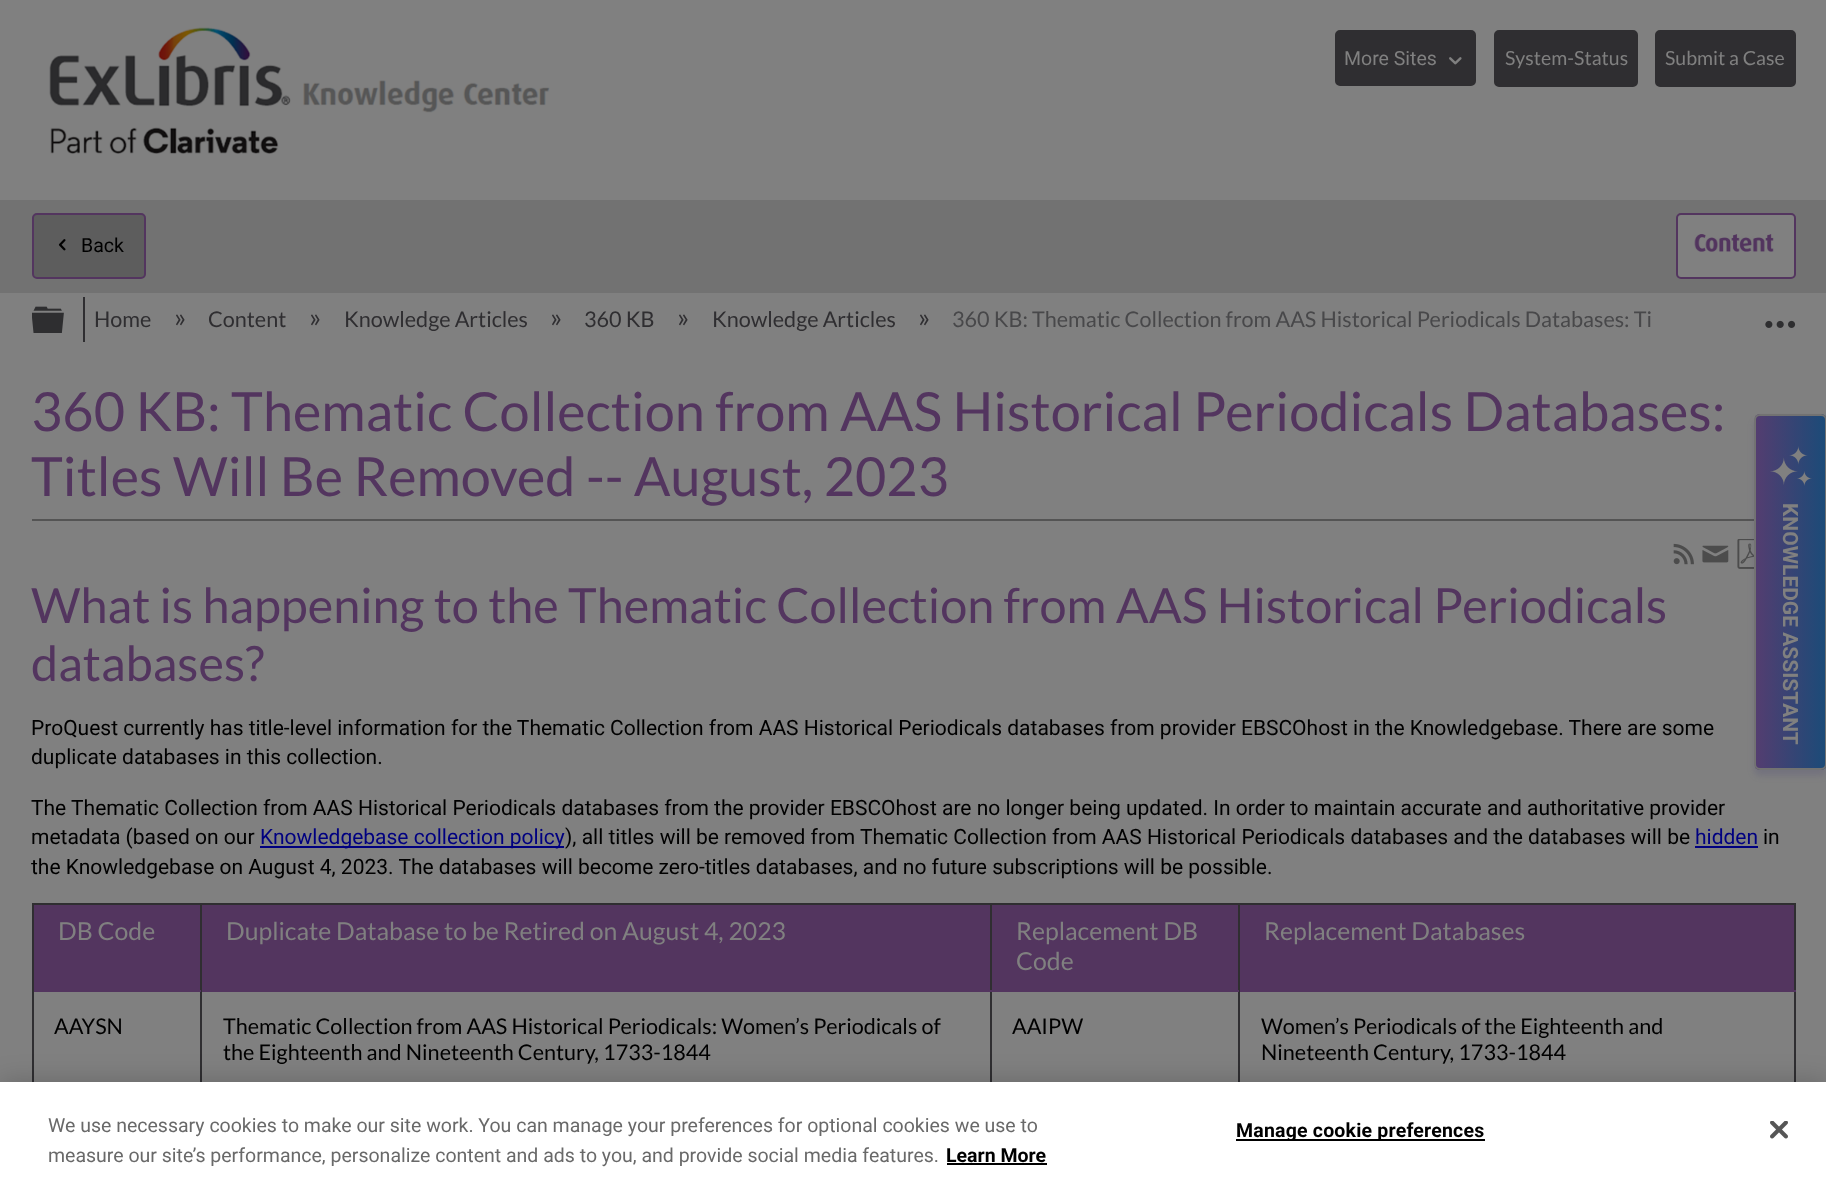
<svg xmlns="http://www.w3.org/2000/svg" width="1826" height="1185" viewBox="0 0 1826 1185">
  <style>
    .t1 { font: 19.5px Roboto; fill: #000; }
    .t2 { font: 19.5px Roboto; fill: #808080; }
    .t3 { font: 19.5px Lato; fill: #808080; }
    .t4 { font: bold 21px Roboto; fill: #808080; }
    .t5 { font: 21.6px Lato; fill: #2f2e31; }
    .t6 { font: 27px Lato; fill: #2f2e31; }
    .t7 { font: 21.6px Lato; fill: #48484a; }
    .t8 { font: 54px Lato; fill: #53355f; }
    .t9 { font: 48.6px Lato; fill: #53355f; }
    .t10 { font: 21px Roboto; fill: #000; }
    .t11 { font: 21px Roboto; fill: #000080; }
    .t12 { font: 24.8px Lato; fill: #808080; }
    .t13 { font: 21.6px Lato; fill: #000; }
    .t14 { font: 19.5px Roboto; fill: #696969; }
    .t15 { font: bold 19.5px Roboto; fill: #000; }
    .t16 { font: bold 19.5px Roboto; letter-spacing: 0.2px; fill: #000; }
  </style>
  <defs>
    <clipPath id="clip1"><rect x="1754" y="414" width="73" height="356" rx="6"/></clipPath>
    <linearGradient id="g1" gradientUnits="userSpaceOnUse" x1="1755" y1="592" x2="1826" y2="592"><stop offset="0" stop-color="#543d70"/><stop offset="1" stop-color="#1b4b78"/></linearGradient>
  </defs>
  <rect width="100%" height="100%" fill="#808080"/>
  <rect x="0" y="200" width="1826" height="93" fill="#727272"/>
  <rect x="33" y="214" width="112" height="64" rx="4" fill="#5d5d5d" stroke="#53355f" stroke-width="2"/>
  <image x="58" y="239" width="8" height="12" href="images/1.png"/>
  <text x="81" y="252" class="t1">Back</text>
  <rect x="1677" y="214" width="118" height="64" rx="4" fill="#808080" stroke="#53355f" stroke-width="2"/>
  <image x="1694" y="234" width="80" height="18" href="images/2.png"/>
  <image x="49" y="27" width="501" height="127" href="images/3.png"/>
  <rect x="1336" y="31" width="139" height="54" rx="4" fill="#2f2e31" stroke="#2f2e31" stroke-width="2"/>
  <text x="1344" y="65" class="t2">More Sites</text>
  <image x="1449" y="57" width="13" height="8" href="images/4.png"/>
  <rect x="1495" y="31" width="142" height="55" rx="4" fill="#2f2e31" stroke="#2f2e31" stroke-width="2"/>
  <text x="1505" y="65" class="t3">System-Status</text>
  <rect x="1656" y="31" width="139" height="55" rx="4" fill="#2f2e31" stroke="#2f2e31" stroke-width="2"/>
  <text x="1665" y="65" class="t3">Submit a Case</text>
  <rect x="32" y="519" width="1722" height="2" fill="#545454"/>
  <image x="1737" y="539" width="17" height="30" href="images/10.png"/>
  <rect x="1754" y="420" width="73" height="356" rx="6" fill="#423c7333" filter="blur(3px)"/>
  <g clip-path="url(#clip1)">
    <rect x="1755" y="414" width="71" height="356" fill="url(#g1)"/>
  </g>
  <rect x="1755" y="415" width="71" height="354" rx="5" fill="none" stroke="#727272" stroke-width="2"/>
  <image x="1770" y="446" width="42" height="40" href="images/5.png"/>
  <text x="1783" y="503" transform="rotate(90 1783 503)" class="t4">KNOWLEDGE ASSISTANT</text>
  <image x="32" y="306" width="32" height="27" href="images/6.png"/>
  <rect x="83" y="297" width="2" height="45" fill="#2f2e31"/>
  <text x="94" y="327" class="t5">Home</text>
  <text x="174" y="327" class="t6">»</text>
  <text x="208" y="327" class="t5">Content</text>
  <text x="309" y="327" class="t6">»</text>
  <text x="344" y="327" class="t5">Knowledge Articles</text>
  <text x="550" y="327" class="t6">»</text>
  <text x="584" y="327" class="t5">360 KB</text>
  <text x="677" y="327" class="t6">»</text>
  <text x="712" y="327" class="t5">Knowledge Articles</text>
  <text x="918" y="327" class="t6">»</text>
  <text x="952" y="327" class="t7">360 KB: Thematic Collection from AAS Historical Periodicals Databases: Ti</text>
  <image x="1765" y="320" width="31" height="8" href="images/7.png"/>
  <text x="31" y="431" class="t8">360 KB: Thematic Collection from AAS Historical Periodicals Databases:</text>
  <text x="31" y="496" class="t8">Titles Will Be Removed -- August, 2023</text>
  <image x="1673" y="543" width="21" height="22" href="images/8.png"/>
  <image x="1702" y="545" width="27" height="18" href="images/9.png"/>
  <text x="31" y="623" word-spacing="-0.1" class="t9">What is happening to the Thematic Collection from AAS Historical Periodicals</text>
  <text x="31" y="681" class="t9">databases?</text>
  <text x="31" y="735" class="t10">ProQuest currently has title-level information for the Thematic Collection from AAS Historical Periodicals databases from provider EBSCOhost in the Knowledgebase. There are some</text>
  <text x="31" y="764" class="t10">duplicate databases in this collection.</text>
  <text x="31" y="815" class="t10">The Thematic Collection from AAS Historical Periodicals databases from the provider EBSCOhost are no longer being updated. In order to maintain accurate and authoritative provider</text>
  <text x="31" y="844" class="t10">metadata (based on our</text>
  <rect x="260" y="846" width="304" height="2" fill="#000080"/>
  <text x="260" y="844" class="t11">Knowledgebase collection policy</text>
  <text x="565" y="844" class="t10">), all titles will be removed from Thematic Collection from AAS Historical Periodicals databases and the databases will be</text>
  <text x="1695" y="844" class="t11">hidden</text>
  <rect x="1695" y="846" width="63" height="2" fill="#000080"/>
  <text x="1763" y="844" class="t10">in</text>
  <text x="31" y="874" class="t10">the Knowledgebase on August 4, 2023. The databases will become zero-titles databases, and no future subscriptions will be possible.</text>
  <rect x="34" y="905" width="166" height="85" fill="#53355f"/>
  <rect x="1238" y="903" width="558" height="2" fill="#2f2e31"/>
  <rect x="1794" y="990" width="2" height="98" fill="#2f2e31"/>
  <rect x="1794" y="903" width="2" height="89" fill="#2f2e31"/>
  <rect x="1238" y="990" width="2" height="98" fill="#2f2e31"/>
  <rect x="1238" y="990" width="558" height="2" fill="#53355f"/>
  <rect x="1238" y="903" width="2" height="89" fill="#2f2e31"/>
  <rect x="990" y="903" width="249" height="2" fill="#2f2e31"/>
  <rect x="990" y="990" width="2" height="98" fill="#2f2e31"/>
  <rect x="990" y="990" width="249" height="2" fill="#53355f"/>
  <rect x="990" y="903" width="2" height="89" fill="#2f2e31"/>
  <rect x="200" y="903" width="792" height="2" fill="#2f2e31"/>
  <rect x="200" y="990" width="2" height="98" fill="#2f2e31"/>
  <rect x="200" y="990" width="792" height="2" fill="#53355f"/>
  <rect x="200" y="903" width="2" height="89" fill="#2f2e31"/>
  <rect x="32" y="903" width="169" height="2" fill="#2f2e31"/>
  <rect x="32" y="990" width="2" height="98" fill="#2f2e31"/>
  <rect x="32" y="990" width="169" height="2" fill="#53355f"/>
  <rect x="32" y="903" width="2" height="89" fill="#2f2e31"/>
  <text x="58" y="940" class="t12">DB Code</text>
  <rect x="202" y="905" width="788" height="85" fill="#53355f"/>
  <text x="226" y="940" class="t12">Duplicate Database to be Retired on August 4, 2023</text>
  <rect x="992" y="905" width="246" height="85" fill="#53355f"/>
  <text x="1016" y="940" class="t12">Replacement DB</text>
  <text x="1016" y="970" class="t12">Code</text>
  <rect x="1240" y="905" width="554" height="85" fill="#53355f"/>
  <text x="1264" y="940" class="t12">Replacement Databases</text>
  <text x="54" y="1034" class="t13">AAYSN</text>
  <text x="223" y="1034" class="t13">Thematic Collection from AAS Historical Periodicals: Women’s Periodicals of</text>
  <text x="223" y="1060" class="t13">the Eighteenth and Nineteenth Century, 1733-1844</text>
  <text x="1012" y="1034" class="t13">AAIPW</text>
  <text x="1261" y="1034" class="t13">Women’s Periodicals of the Eighteenth and</text>
  <text x="1261" y="1060" class="t13">Nineteenth Century, 1733-1844</text>
  <rect x="0" y="1082" width="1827" height="103" fill="#00000033" filter="blur(13.5px)"/>
  <rect x="0" y="1082" width="1826" height="103" fill="#fff"/>
  <text x="48" y="1132" class="t14">We use necessary cookies to make our site work. You can manage your preferences for optional cookies we use to</text>
  <text x="48" y="1162" class="t14">measure our site’s performance, personalize content and ads to you, and provide social media features.</text>
  <text x="946" y="1162" class="t15">Learn More</text>
  <rect x="947" y="1163" width="100" height="2" fill="#000"/>
  <rect x="1236" y="1139" width="249" height="2" fill="#000"/>
  <text x="1236" y="1137" class="t16">Manage cookie preferences</text>
  <image x="1770" y="1121" width="18" height="18" href="images/11.png"/>
</svg>
